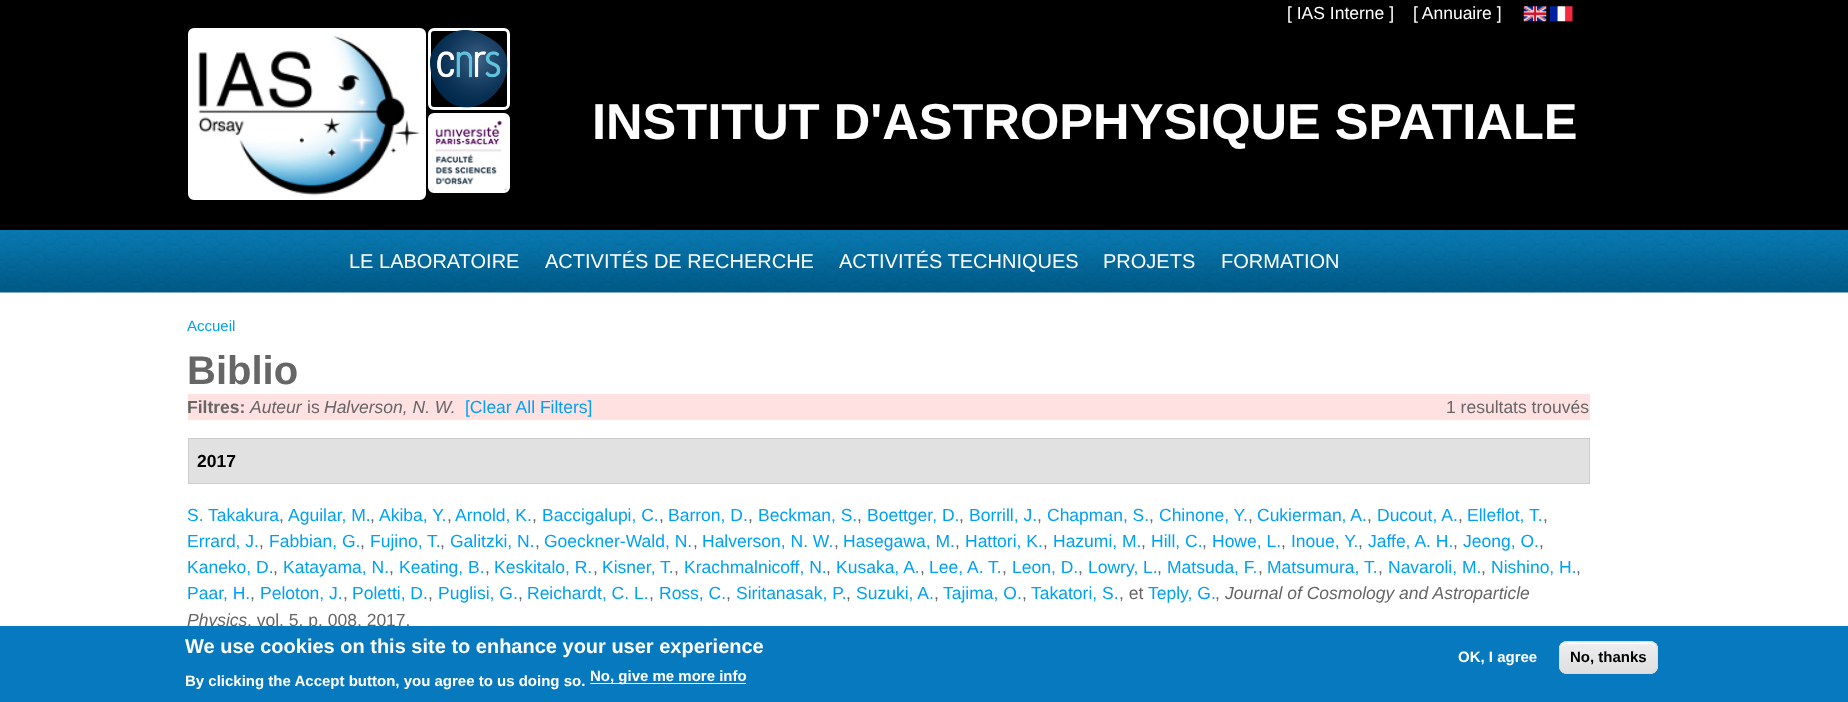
<svg xmlns="http://www.w3.org/2000/svg" width="1848" height="702" viewBox="0 0 1848 702">
  <style>
    .t1 { font: 17.5px Liberation Sans; fill: #fff; }
    .t2 { font: bold 50.6px Liberation Sans; fill: #fff; }
    .t3 { font: 20px Liberation Sans; fill: #fff; }
    .t4 { font: 15px Liberation Sans; fill: #00a1f4; }
    .t5 { font: bold 40px Liberation Sans; fill: #666; }
    .t6 { font: bold 17.5px Liberation Sans; fill: #666; }
    .t7 { font: italic 17.5px Liberation Sans; fill: #666; }
    .t8 { font: 17.5px Liberation Sans; fill: #666; }
    .t9 { font: 17.5px Liberation Sans; fill: #00a1f4; }
    .t10 { font: bold 17.5px Liberation Sans; fill: #000; }
    .t11 { font: bold 20px Liberation Sans; fill: #fff; }
    .t12 { font: bold 15px Liberation Sans; fill: #fff; }
    .t13 { font: bold 15px Liberation Sans; fill: #000; }
  </style>
  <defs>
    <clipPath id="clip1"><rect x="1559" y="641" width="99" height="33" rx="8"/></clipPath>
    <linearGradient id="g1" gradientUnits="userSpaceOnUse" x1="1608" y1="643" x2="1608" y2="673"><stop offset="0.05" stop-color="#ededed"/><stop offset="1" stop-color="#dfdfdf"/></linearGradient>
  </defs>
  <rect width="100%" height="100%" fill="#fff"/>
  <rect x="0" y="0" width="1848" height="230" fill="#000"/>
  <text x="1287" y="19" class="t1">[ IAS Interne ]</text>
  <text x="1413" y="19" class="t1">[ Annuaire ]</text>
  <image x="1523" y="6" width="24" height="16" href="images/1.png"/>
  <image x="1550" y="6" width="23" height="16" href="images/2.png"/>
  <rect x="189.5" y="29.5" width="235" height="169" rx="4.5" fill="none" stroke="#fff" stroke-width="3"/>
  <image x="191" y="31" width="232" height="166" href="images/3.png"/>
  <rect x="429.5" y="29.5" width="79" height="79" rx="4.5" fill="none" stroke="#fff" stroke-width="3"/>
  <image x="430" y="30" width="78" height="78" href="images/4.png"/>
  <rect x="429.5" y="114.5" width="79" height="77" rx="4.5" fill="none" stroke="#fff" stroke-width="3"/>
  <image x="431" y="116" width="76" height="74" href="images/5.png"/>
  <text x="592" y="139" class="t2">INSTITUT D'ASTROPHYSIQUE SPATIALE</text>
  <image x="0" y="230" width="1848" height="63" href="images/6.png"/>
  <text x="349" y="268" class="t3">LE LABORATOIRE</text>
  <text x="545" y="268" class="t3">ACTIVITÉS DE RECHERCHE</text>
  <text x="839" y="268" class="t3">ACTIVITÉS TECHNIQUES</text>
  <text x="1103" y="268" class="t3">PROJETS</text>
  <text x="1221" y="268" class="t3">FORMATION</text>
  <text x="187" y="331" class="t4">Accueil</text>
  <text x="187" y="384" class="t5">Biblio</text>
  <rect x="188" y="394" width="1402" height="26" fill="#ffe1e1"/>
  <text x="187" y="413" class="t6">Filtres:</text>
  <text x="250" y="413" class="t7">Auteur</text>
  <text x="307" y="413" class="t8">is</text>
  <text x="324" y="413" class="t7">Halverson, N. W.</text>
  <text x="465" y="413" class="t9">[Clear All Filters]</text>
  <text x="1446" y="413" class="t8">1 resultats trouvés</text>
  <rect x="188.5" y="438.5" width="1401" height="45" fill="#e1e1e1" stroke="#ccc"/>
  <text x="197" y="467" class="t10">2017</text>
  <text x="187" y="521" class="t9">S.</text>
  <text x="208" y="521" class="t9">Takakura</text>
  <text x="279" y="521" class="t8">,</text>
  <text x="288" y="521" class="t9">Aguilar, M.</text>
  <text x="370" y="521" class="t8">,</text>
  <text x="379" y="521" class="t9">Akiba, Y.</text>
  <text x="447" y="521" class="t8">,</text>
  <text x="455" y="521" class="t9">Arnold, K.</text>
  <text x="532" y="521" class="t8">,</text>
  <text x="542" y="521" class="t9">Baccigalupi, C.</text>
  <text x="659" y="521" class="t8">,</text>
  <text x="668" y="521" class="t9">Barron, D.</text>
  <text x="748" y="521" class="t8">,</text>
  <text x="758" y="521" class="t9">Beckman, S.</text>
  <text x="857" y="521" class="t8">,</text>
  <text x="867" y="521" class="t9">Boettger, D.</text>
  <text x="959" y="521" class="t8">,</text>
  <text x="969" y="521" class="t9">Borrill, J.</text>
  <text x="1037" y="521" class="t8">,</text>
  <text x="1047" y="521" class="t9">Chapman, S.</text>
  <text x="1149" y="521" class="t8">,</text>
  <text x="1159" y="521" class="t9">Chinone, Y.</text>
  <text x="1248" y="521" class="t8">,</text>
  <text x="1257" y="521" class="t9">Cukierman, A.</text>
  <text x="1367" y="521" class="t8">,</text>
  <text x="1377" y="521" class="t9">Ducout, A.</text>
  <text x="1458" y="521" class="t8">,</text>
  <text x="1467" y="521" class="t9">Elleflot, T.</text>
  <text x="1543" y="521" class="t8">,</text>
  <text x="187" y="547" class="t9">Errard, J.</text>
  <text x="259" y="547" class="t8">,</text>
  <text x="269" y="547" class="t9">Fabbian, G.</text>
  <text x="360" y="547" class="t8">,</text>
  <text x="370" y="547" class="t9">Fujino, T.</text>
  <text x="440" y="547" class="t8">,</text>
  <text x="450" y="547" class="t9">Galitzki, N.</text>
  <text x="535" y="547" class="t8">,</text>
  <text x="544" y="547" class="t9">Goeckner-Wald, N.</text>
  <text x="693" y="547" class="t8">,</text>
  <text x="702" y="547" class="t9">Halverson, N. W.</text>
  <text x="834" y="547" class="t8">,</text>
  <text x="843" y="547" class="t9">Hasegawa, M.</text>
  <text x="955" y="547" class="t8">,</text>
  <text x="965" y="547" class="t9">Hattori, K.</text>
  <text x="1043" y="547" class="t8">,</text>
  <text x="1053" y="547" class="t9">Hazumi, M.</text>
  <text x="1141" y="547" class="t8">,</text>
  <text x="1151" y="547" class="t9">Hill, C.</text>
  <text x="1202" y="547" class="t8">,</text>
  <text x="1212" y="547" class="t9">Howe, L.</text>
  <text x="1281" y="547" class="t8">,</text>
  <text x="1291" y="547" class="t9">Inoue, Y.</text>
  <text x="1358" y="547" class="t8">,</text>
  <text x="1368" y="547" class="t9">Jaffe, A. H.</text>
  <text x="1453" y="547" class="t8">,</text>
  <text x="1463" y="547" class="t9">Jeong, O.</text>
  <text x="1539" y="547" class="t8">,</text>
  <text x="187" y="573" class="t9">Kaneko, D.</text>
  <text x="273" y="573" class="t8">,</text>
  <text x="283" y="573" class="t9">Katayama, N.</text>
  <text x="389" y="573" class="t8">,</text>
  <text x="399" y="573" class="t9">Keating, B.</text>
  <text x="485" y="573" class="t8">,</text>
  <text x="494" y="573" class="t9">Keskitalo, R.</text>
  <text x="593" y="573" class="t8">,</text>
  <text x="602" y="573" class="t9">Kisner, T.</text>
  <text x="674" y="573" class="t8">,</text>
  <text x="684" y="573" class="t9">Krachmalnicoff, N.</text>
  <text x="826" y="573" class="t8">,</text>
  <text x="836" y="573" class="t9">Kusaka, A.</text>
  <text x="920" y="573" class="t8">,</text>
  <text x="929" y="573" class="t9">Lee, A. T.</text>
  <text x="1002" y="573" class="t8">,</text>
  <text x="1012" y="573" class="t9">Leon, D.</text>
  <text x="1078" y="573" class="t8">,</text>
  <text x="1088" y="573" class="t9">Lowry, L.</text>
  <text x="1157" y="573" class="t8">,</text>
  <text x="1167" y="573" class="t9">Matsuda, F.</text>
  <text x="1258" y="573" class="t8">,</text>
  <text x="1267" y="573" class="t9">Matsumura, T.</text>
  <text x="1378" y="573" class="t8">,</text>
  <text x="1388" y="573" class="t9">Navaroli, M.</text>
  <text x="1481" y="573" class="t8">,</text>
  <text x="1491" y="573" class="t9">Nishino, H.</text>
  <text x="1576" y="573" class="t8">,</text>
  <text x="187" y="599" class="t9">Paar, H.</text>
  <text x="250" y="599" class="t8">,</text>
  <text x="260" y="599" class="t9">Peloton, J.</text>
  <text x="343" y="599" class="t8">,</text>
  <text x="352" y="599" class="t9">Poletti, D.</text>
  <text x="428" y="599" class="t8">,</text>
  <text x="438" y="599" class="t9">Puglisi, G.</text>
  <text x="518" y="599" class="t8">,</text>
  <text x="527" y="599" class="t9">Reichardt, C. L.</text>
  <text x="649" y="599" class="t8">,</text>
  <text x="659" y="599" class="t9">Ross, C.</text>
  <text x="726" y="599" class="t8">,</text>
  <text x="736" y="599" class="t9">Siritanasak, P.</text>
  <text x="846" y="599" class="t8">,</text>
  <text x="856" y="599" class="t9">Suzuki, A.</text>
  <text x="934" y="599" class="t8">,</text>
  <text x="943" y="599" class="t9">Tajima, O.</text>
  <text x="1022" y="599" class="t8">,</text>
  <text x="1031" y="599" class="t9">Takatori, S.</text>
  <text x="1119" y="599" class="t8">, et</text>
  <text x="1148" y="599" class="t9">Teply, G.</text>
  <text x="1215" y="599" class="t8">,</text>
  <text x="1225" y="599" class="t7">Journal of Cosmology and Astroparticle</text>
  <text x="187" y="626" class="t7">Physics</text>
  <text x="247" y="626" class="t8">, vol. 5. p. 008, 2017.</text>
  <rect x="0" y="626" width="1848" height="76" fill="#0779bf"/>
  <text x="185" y="653" class="t11">We use cookies on this site to enhance your user experience</text>
  <text x="185" y="686" class="t12">By clicking the Accept button, you agree to us doing so.</text>
  <rect x="590" y="683" width="156" height="1" fill="#fff"/>
  <text x="590" y="681" class="t12">No, give me more info</text>
  <text x="1458" y="662" class="t12">OK, I agree</text>
  <rect x="1559" y="641" width="99" height="33" rx="8" fill="#ededed"/>
  <g clip-path="url(#clip1)">
    <rect x="1559" y="643" width="99" height="30" fill="url(#g1)"/>
  </g>
  <path d="M1566 644H1650C1653 644 1656 647 1656 650C1656 640 1642 643 1636 643H1580C1574 643 1560 640 1560 650C1560 647 1563 644 1566 644Z" fill="#fff"/>
  <rect x="1559.5" y="641.5" width="98" height="32" rx="7.5" fill="none" stroke="#dcdcdc"/>
  <text x="1570" y="662" class="t13">No, thanks</text>
</svg>
